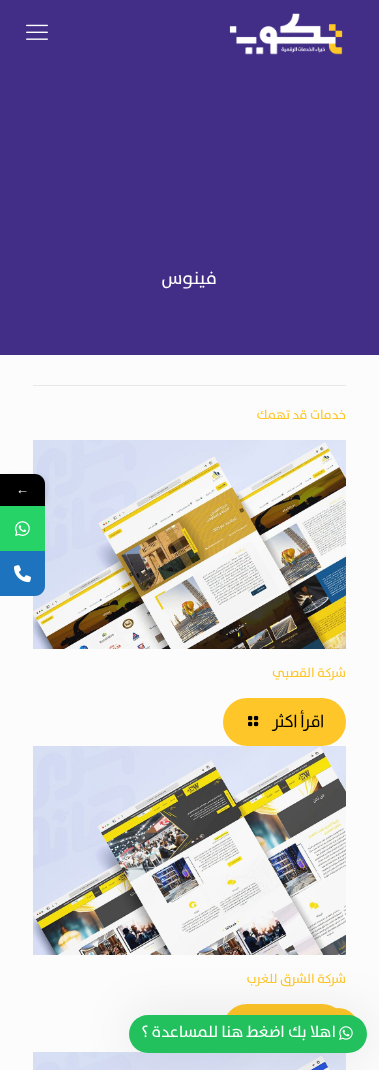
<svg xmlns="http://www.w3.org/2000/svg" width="379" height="1070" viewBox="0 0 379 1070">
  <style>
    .t1 { font: 500 18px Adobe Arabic; direction: rtl; fill: #fff; }
    .t2 { font: 500 13px Adobe Arabic; direction: rtl; fill: #ffc629; }
    .t3 { font: 17px Almarai; direction: rtl; fill: #000; }
    .t4 { font: 13px Liberation Serif; fill: #fff; }
    .t5 { font: 500 16px Adobe Arabic; direction: rtl; fill: #fff; }
  </style>
  <rect width="100%" height="100%" fill="#fcfcfc"/>
  <rect x="0" y="0" width="379" height="355" fill="#422e87"/>
  <image x="229" y="13" width="114" height="42" href="images/1.png"/>
  <image x="26" y="24" width="22" height="16" href="images/2.png"/>
  <text x="217" y="284" class="t1">فينوس</text>
  <rect x="33" y="385" width="313" height="1" fill="#e8e8e8"/>
  <text x="346" y="419" class="t2">خدمات قد تهمك</text>
  <image x="33" y="440" width="313" height="209" href="images/3.png"/>
  <text x="346" y="677" class="t2">شركة القصبي</text>
  <rect x="223" y="698" width="123" height="48" rx="24" fill="#ffc629"/>
  <text x="324" y="727" class="t3">اقرأ اكثر</text>
  <image x="248" y="715" width="11" height="12" href="images/4.png"/>
  <image x="33" y="746" width="313" height="209" href="images/5.png"/>
  <text x="346" y="983" class="t2">شركة الشرق للغرب</text>
  <rect x="223" y="1004" width="123" height="48" rx="24" fill="#ffc629"/>
  <image x="33" y="1052" width="313" height="18" href="images/6.png"/>
  <rect x="0" y="477" width="45" height="32" rx="10" fill="#00000029" filter="blur(3px)"/>
  <path d="M0 474H35C40.5 474 45 478.5 45 484V506H0Z" fill="#000"/>
  <text x="16" y="494" class="t4">←</text>
  <rect x="0" y="506" width="45" height="45" fill="#26d367"/>
  <image x="15" y="521" width="15" height="15" href="images/7.png"/>
  <path d="M0 551H45V586C45 591.5 40.5 596 35 596H0Z" fill="#1e73be"/>
  <image x="14" y="565" width="17" height="18" href="images/8.png"/>
  <circle cx="338" cy="1029" r="21" fill="#ffc629"/>
  <rect x="129" y="1015" width="238" height="38" rx="19" fill="#0000001a" filter="blur(25px)"/>
  <rect x="129" y="1015" width="238" height="38" rx="19" fill="#22c15e"/>
  <image x="339" y="1026" width="14" height="14" href="images/9.png"/>
  <text x="336" y="1037" class="t5">اهلا بك اضغط هنا للمساعدة ؟</text>
</svg>
